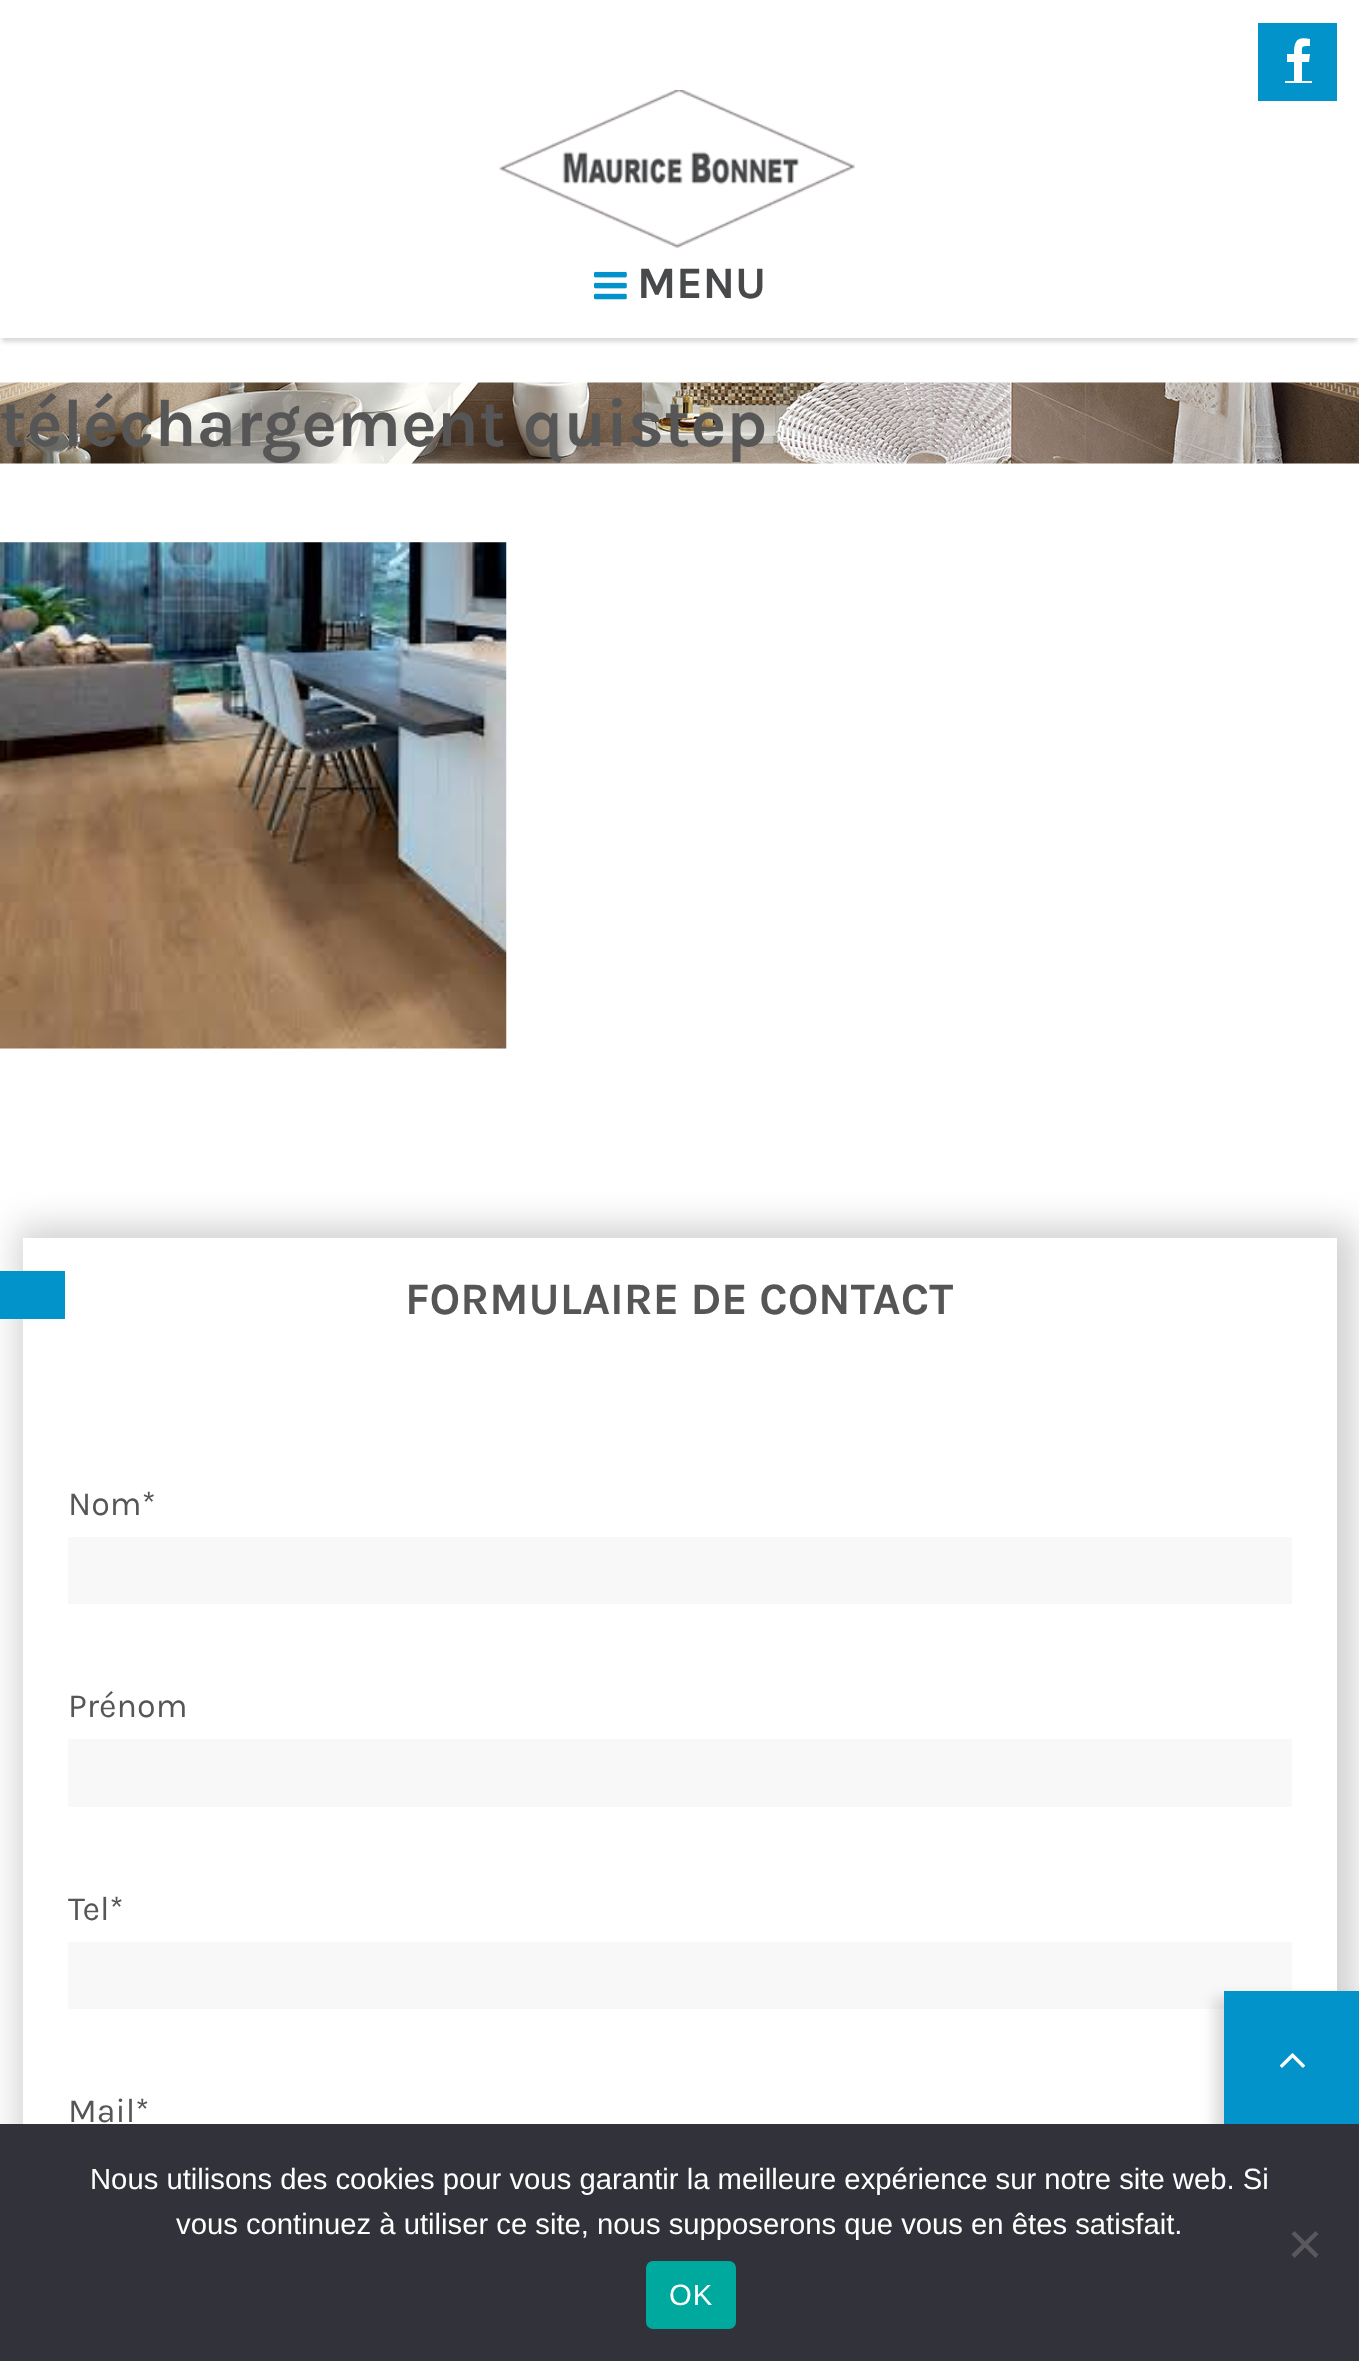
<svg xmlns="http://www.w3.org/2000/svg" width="1359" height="2361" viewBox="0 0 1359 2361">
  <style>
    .t1 { font: bold 45px Karla; fill: #48494b; }
    .t2 { font: bold 67.5px Karla; fill: #565656; }
    .t3 { font: bold 45px Karla; fill: #565656; }
    .t4 { font: 34px Karla; fill: #565656; }
    .t5 { font: 29.25px Liberation Sans; fill: #fff; }
    .t6 { font: 29.25px Liberation Sans; letter-spacing: 1px; fill: #fff; }
  </style>
  <rect width="100%" height="100%" fill="#fff"/>
  <rect x="1258" y="23" width="79" height="78" fill="#0193c9"/>
  <rect x="1285" y="81" width="27" height="2" fill="#fff"/>
  <path d="M1310 39V46C1301 46 1302 46 1302 54H1310L1309 62H1302V82H1294V62H1287V54H1294C1294 42 1296 36 1310 39Z" fill="#fff"/>
  <rect x="2" y="178" width="1355" height="164" fill="#00000026" filter="blur(2px)"/>
  <rect x="0" y="175" width="1359" height="163" fill="#fff"/>
  <image x="499" y="90" width="356" height="158" href="images/1.png"/>
  <image x="594" y="271" width="33" height="29" href="images/2.png"/>
  <text x="637" y="298" class="t1">MENU</text>
  <image x="0" y="382" width="1359" height="82" href="images/3.png"/>
  <text x="0" y="446" class="t2">téléchargement quistep</text>
  <image x="0" y="542" width="507" height="507" href="images/4.png"/>
  <rect x="18" y="1226" width="1337" height="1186" fill="#0000002e" filter="blur(17px)"/>
  <rect x="23" y="1238" width="1314" height="886" fill="#fff"/>
  <rect x="0" y="1271" width="65" height="48" fill="#0193c9"/>
  <text x="405" y="1314" class="t3">FORMULAIRE DE CONTACT</text>
  <text x="68" y="1515" class="t4">Nom*</text>
  <rect x="68" y="1537" width="1224" height="67" fill="#f8f8f8"/>
  <text x="68" y="1717" class="t4">Prénom</text>
  <rect x="68" y="1739" width="1224" height="68" fill="#f8f8f8"/>
  <text x="68" y="1920" class="t4">Tel*</text>
  <rect x="68" y="1942" width="1224" height="67" fill="#f8f8f8"/>
  <text x="68" y="2122" class="t4">Mail*</text>
  <rect x="1215" y="1998" width="140" height="140" fill="#00000026" filter="blur(7px)"/>
  <rect x="1224" y="1991" width="135" height="133" fill="#0193c9"/>
  <image x="1280" y="2053" width="25" height="15" href="images/5.png"/>
  <rect x="0" y="2124" width="1359" height="237" fill="#32323a"/>
  <text x="90" y="2189" class="t5">Nous utilisons des cookies pour vous garantir la meilleure expérience sur notre site web. Si</text>
  <text x="176" y="2234" class="t5">vous continuez à utiliser ce site, nous supposerons que vous en êtes satisfait.</text>
  <path d="M1315.5 2231L1318.5 2234L1294.5 2258L1291.5 2254.5Z" fill="#59595d"/>
  <path d="M1291.5 2234L1294.5 2231L1318.5 2254.5L1315.5 2258Z" fill="#59595d"/>
  <rect x="646" y="2261" width="90" height="68" rx="7" fill="#00a99d"/>
  <text x="669" y="2305" class="t6">OK</text>
</svg>
